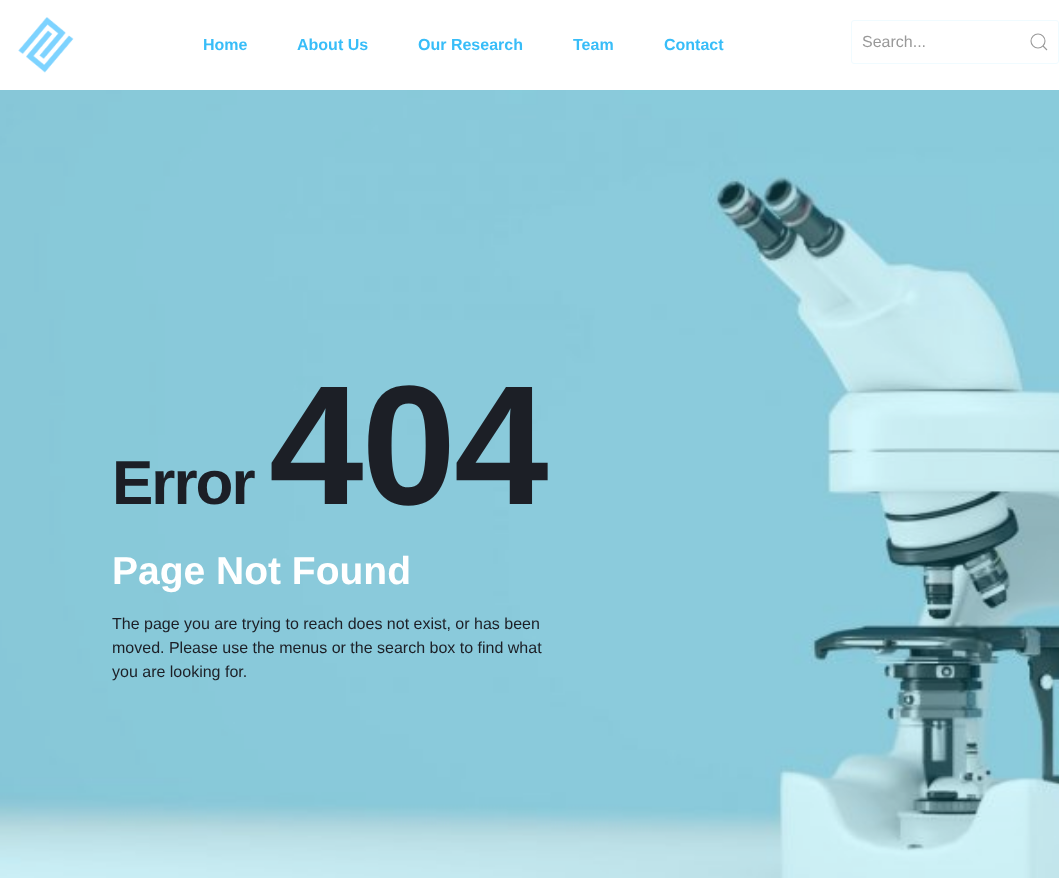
<svg xmlns="http://www.w3.org/2000/svg" width="1059" height="878" viewBox="0 0 1059 878">
  <style>
    .t1 { font: bold 16px Liberation Sans; fill: #38bdf8; }
    .t2 { font: 16px Liberation Sans; fill: #999; }
    .t3 { font: bold 62px Liberation Sans; letter-spacing: -2px; fill: #1c1f26; }
    .t4 { font: bold 170px Liberation Sans; letter-spacing: -2px; fill: #1c1f26; }
    .t5 { font: bold 39px Liberation Sans; fill: #fff; }
    .t6 { font: 16px Liberation Sans; fill: #1c1f26; }
  </style>
  <rect width="100%" height="100%" fill="#fff"/>
  <image x="18" y="17" width="56" height="56" href="images/1.png"/>
  <text x="203" y="50" class="t1">Home</text>
  <text x="297" y="50" class="t1">About Us</text>
  <text x="418" y="50" class="t1">Our Research</text>
  <text x="573" y="50" class="t1">Team</text>
  <text x="664" y="50" class="t1">Contact</text>
  <rect x="851.5" y="20.5" width="207" height="43" rx="2.5" fill="none" stroke="#f0fbff"/>
  <text x="862" y="47" class="t2">Search...</text>
  <circle cx="1038" cy="41" r="7" fill="none" stroke="#999" stroke-width="1.1"/>
  <path d="M1043 46L1047 50Z" fill="none" stroke="#999" stroke-width="1.1"/>
  <image x="0" y="90" width="1059" height="788" href="images/2.png"/>
  <text x="112" y="504" class="t3">Error</text>
  <text x="269" y="504" class="t4">404</text>
  <text x="112" y="584" class="t5">Page Not Found</text>
  <text x="112" y="629" class="t6">The page you are trying to reach does not exist, or has been</text>
  <text x="112" y="653" class="t6">moved. Please use the menus or the search box to find what</text>
  <text x="112" y="677" class="t6">you are looking for.</text>
</svg>
